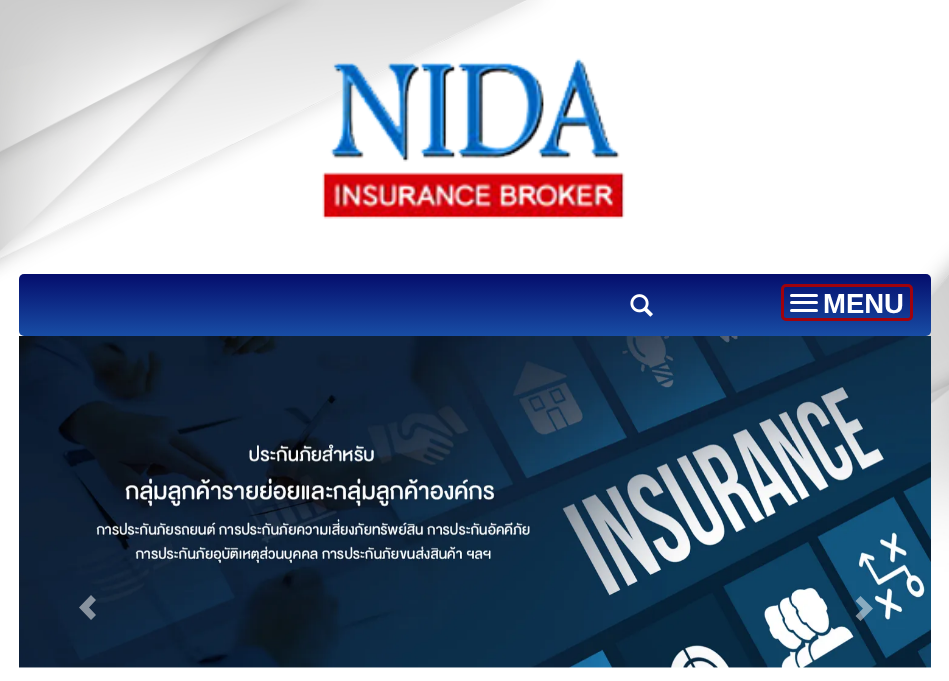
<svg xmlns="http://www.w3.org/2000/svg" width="949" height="681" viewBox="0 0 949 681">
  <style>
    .t1 { font: bold 27.5px Liberation Sans; fill: #fff; }
  </style>
  <defs>
    <linearGradient id="g1" gradientUnits="userSpaceOnUse" x1="475" y1="274" x2="475" y2="336"><stop offset="0.01" stop-color="#050e6d"/><stop offset="1" stop-color="#184da5"/></linearGradient>
  </defs>
  <rect width="100%" height="100%" fill="#fff"/>
  <image x="0" y="0" width="949" height="586" href="images/1.png"/>
  <image x="322" y="58" width="303" height="161" href="images/2.png"/>
  <rect x="19" y="274" width="912" height="62" rx="5" fill="url(#g1)"/>
  <image x="630" y="294" width="23" height="23" href="images/3.png"/>
  <rect x="782.5" y="285.5" width="129" height="34" rx="3.5" fill="none" stroke="#a0020c" stroke-width="3"/>
  <rect x="790" y="294" width="28" height="3" rx="1.5" fill="#fff"/>
  <rect x="790" y="301" width="28" height="3" rx="1.5" fill="#fff"/>
  <rect x="790" y="309" width="28" height="3" rx="1.5" fill="#fff"/>
  <text x="823" y="313" class="t1">MENU</text>
  <image x="19" y="336" width="912" height="332" href="images/4.png"/>
  <path d="M79 607.5L91 620L96 615L89 607.5L96 600L91 595Z" fill="#ffffff80"/>
  <path d="M855.5 616L863 608.5L855.5 601L860.5 596L873 608.5L860.5 621Z" fill="#ffffff80"/>
</svg>
